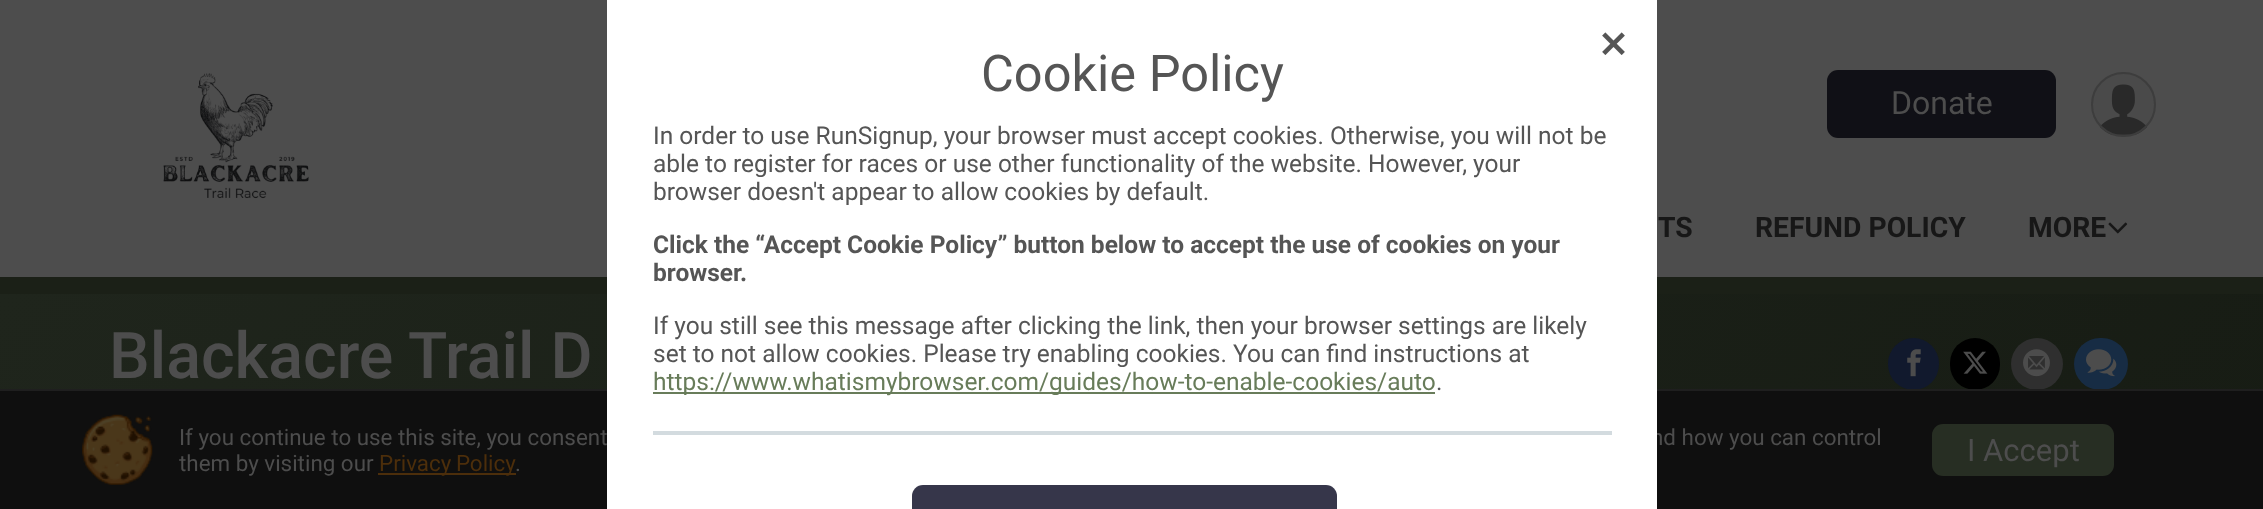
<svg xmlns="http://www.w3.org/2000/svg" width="2263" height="509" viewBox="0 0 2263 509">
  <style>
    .t1 { font: 22.4px Roboto; fill: #4d4d4d; }
    .t2 { font: 50.5px Roboto; fill: #555; }
    .t3 { font: 24.5px Roboto; fill: #555; }
    .t4 { font: bold 24.5px Roboto; fill: #555; }
    .t5 { font: 24.5px Roboto; fill: #687c5a; }
    .t6 { font: 32px Roboto; fill: #4d4d4d; }
    .t7 { font: bold 28.25px Roboto; fill: #171717; }
    .t8 { font: 500 64.5px Roboto; fill: #4d4d4d; }
    .t9 { font: 22.4px Roboto; fill: #4c2e0b; }
    .t10 { font: 31px Roboto; fill: #4d4d4d; }
  </style>
  <defs>
    <linearGradient id="g1" gradientUnits="userSpaceOnUse" x1="1753" y1="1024" x2="511" y2="-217"><stop offset="0" stop-color="#171c14"/><stop offset="1" stop-color="#1f251c"/></linearGradient>
  </defs>
  <rect width="100%" height="100%" fill="#4d4d4d"/>
  <rect x="0" y="294" width="2263" height="95" fill="url(#g1)"/>
  <rect x="0" y="277" width="2263" height="17" fill="#1b2017"/>
  <rect x="0" y="391" width="2263" height="118" fill="#0f0f0f"/>
  <rect x="1888" y="338" width="51" height="52" rx="25.5" fill="#11192d"/>
  <rect x="1950" y="338" width="50" height="52" rx="25" fill="#000"/>
  <circle cx="2037" cy="364" r="26" fill="#2f2f2f"/>
  <rect x="2074" y="338" width="54" height="52" rx="26" fill="#172c44"/>
  <rect x="0" y="389" width="2263" height="2" fill="#1f1f1f"/>
  <text x="1651" y="445" class="t1">nd how you can control</text>
  <rect x="608" y="1" width="1048" height="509" fill="none" stroke="#fff" stroke-width="2"/>
  <rect x="609" y="2" width="1046" height="507" fill="#fff"/>
  <image x="1602" y="32" width="23" height="23" href="images/1.png"/>
  <text x="981" y="91" class="t2">Cookie Policy</text>
  <text x="653" y="144" class="t3">In order to use RunSignup, your browser must accept cookies. Otherwise, you will not be</text>
  <text x="653" y="172" class="t3">able to register for races or use other functionality of the website. However, your</text>
  <text x="653" y="200" class="t3">browser doesn't appear to allow cookies by default.</text>
  <text x="653" y="253" class="t4">Click the “Accept Cookie Policy” button below to accept the use of cookies on your</text>
  <text x="653" y="281" class="t4">browser.</text>
  <text x="653" y="334" class="t3">If you still see this message after clicking the link, then your browser settings are likely</text>
  <text x="653" y="362" class="t3">set to not allow cookies. Please try enabling cookies. You can find instructions at</text>
  <rect x="653" y="392" width="782" height="2" fill="#687c5a"/>
  <text x="653" y="390" class="t5">https://www.whatismybrowser.com/guides/how-to-enable-cookies/auto</text>
  <text x="1436" y="390" class="t3">.</text>
  <rect x="653" y="431" width="959" height="4" fill="#d3dbdf"/>
  <rect x="912" y="485" width="425" height="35" rx="11" fill="#36364a"/>
  <image x="163" y="73" width="146" height="126" href="images/2.png"/>
  <rect x="1827" y="70" width="229" height="68" rx="11" fill="#101016"/>
  <text x="1891" y="114" class="t6">Donate</text>
  <image x="2093" y="74" width="61" height="61" href="images/3.png"/>
  <circle cx="2123.5" cy="104.5" r="31.5" fill="none" stroke="#3d3d3d" stroke-width="2"/>
  <text x="1658" y="237" class="t7">TS</text>
  <text x="1755" y="237" class="t7">REFUND POLICY</text>
  <text x="2028" y="237" class="t7">MORE</text>
  <image x="2108" y="222" width="20" height="12" href="images/4.png"/>
  <text x="109" y="378" class="t8">Blackacre Trail D</text>
  <image x="1907" y="349" width="14" height="28" href="images/5.png"/>
  <image x="1963" y="351" width="25" height="23" href="images/6.png"/>
  <image x="2023" y="349" width="27" height="28" href="images/7.png"/>
  <image x="2086" y="349" width="31" height="28" href="images/8.png"/>
  <image x="82" y="414" width="71" height="71" href="images/9.png"/>
  <text x="179" y="445" class="t1">If you continue to use this site, you consent</text>
  <text x="179" y="471" class="t1">them by visiting our</text>
  <rect x="378" y="473" width="138" height="2" fill="#4c2e0b"/>
  <text x="379" y="471" word-spacing="-1" class="t9">Privacy Policy</text>
  <text x="515" y="471" class="t1">.</text>
  <rect x="1932" y="424" width="182" height="52" rx="11" fill="#272e23"/>
  <text x="1967" y="461" class="t10">I Accept</text>
</svg>
